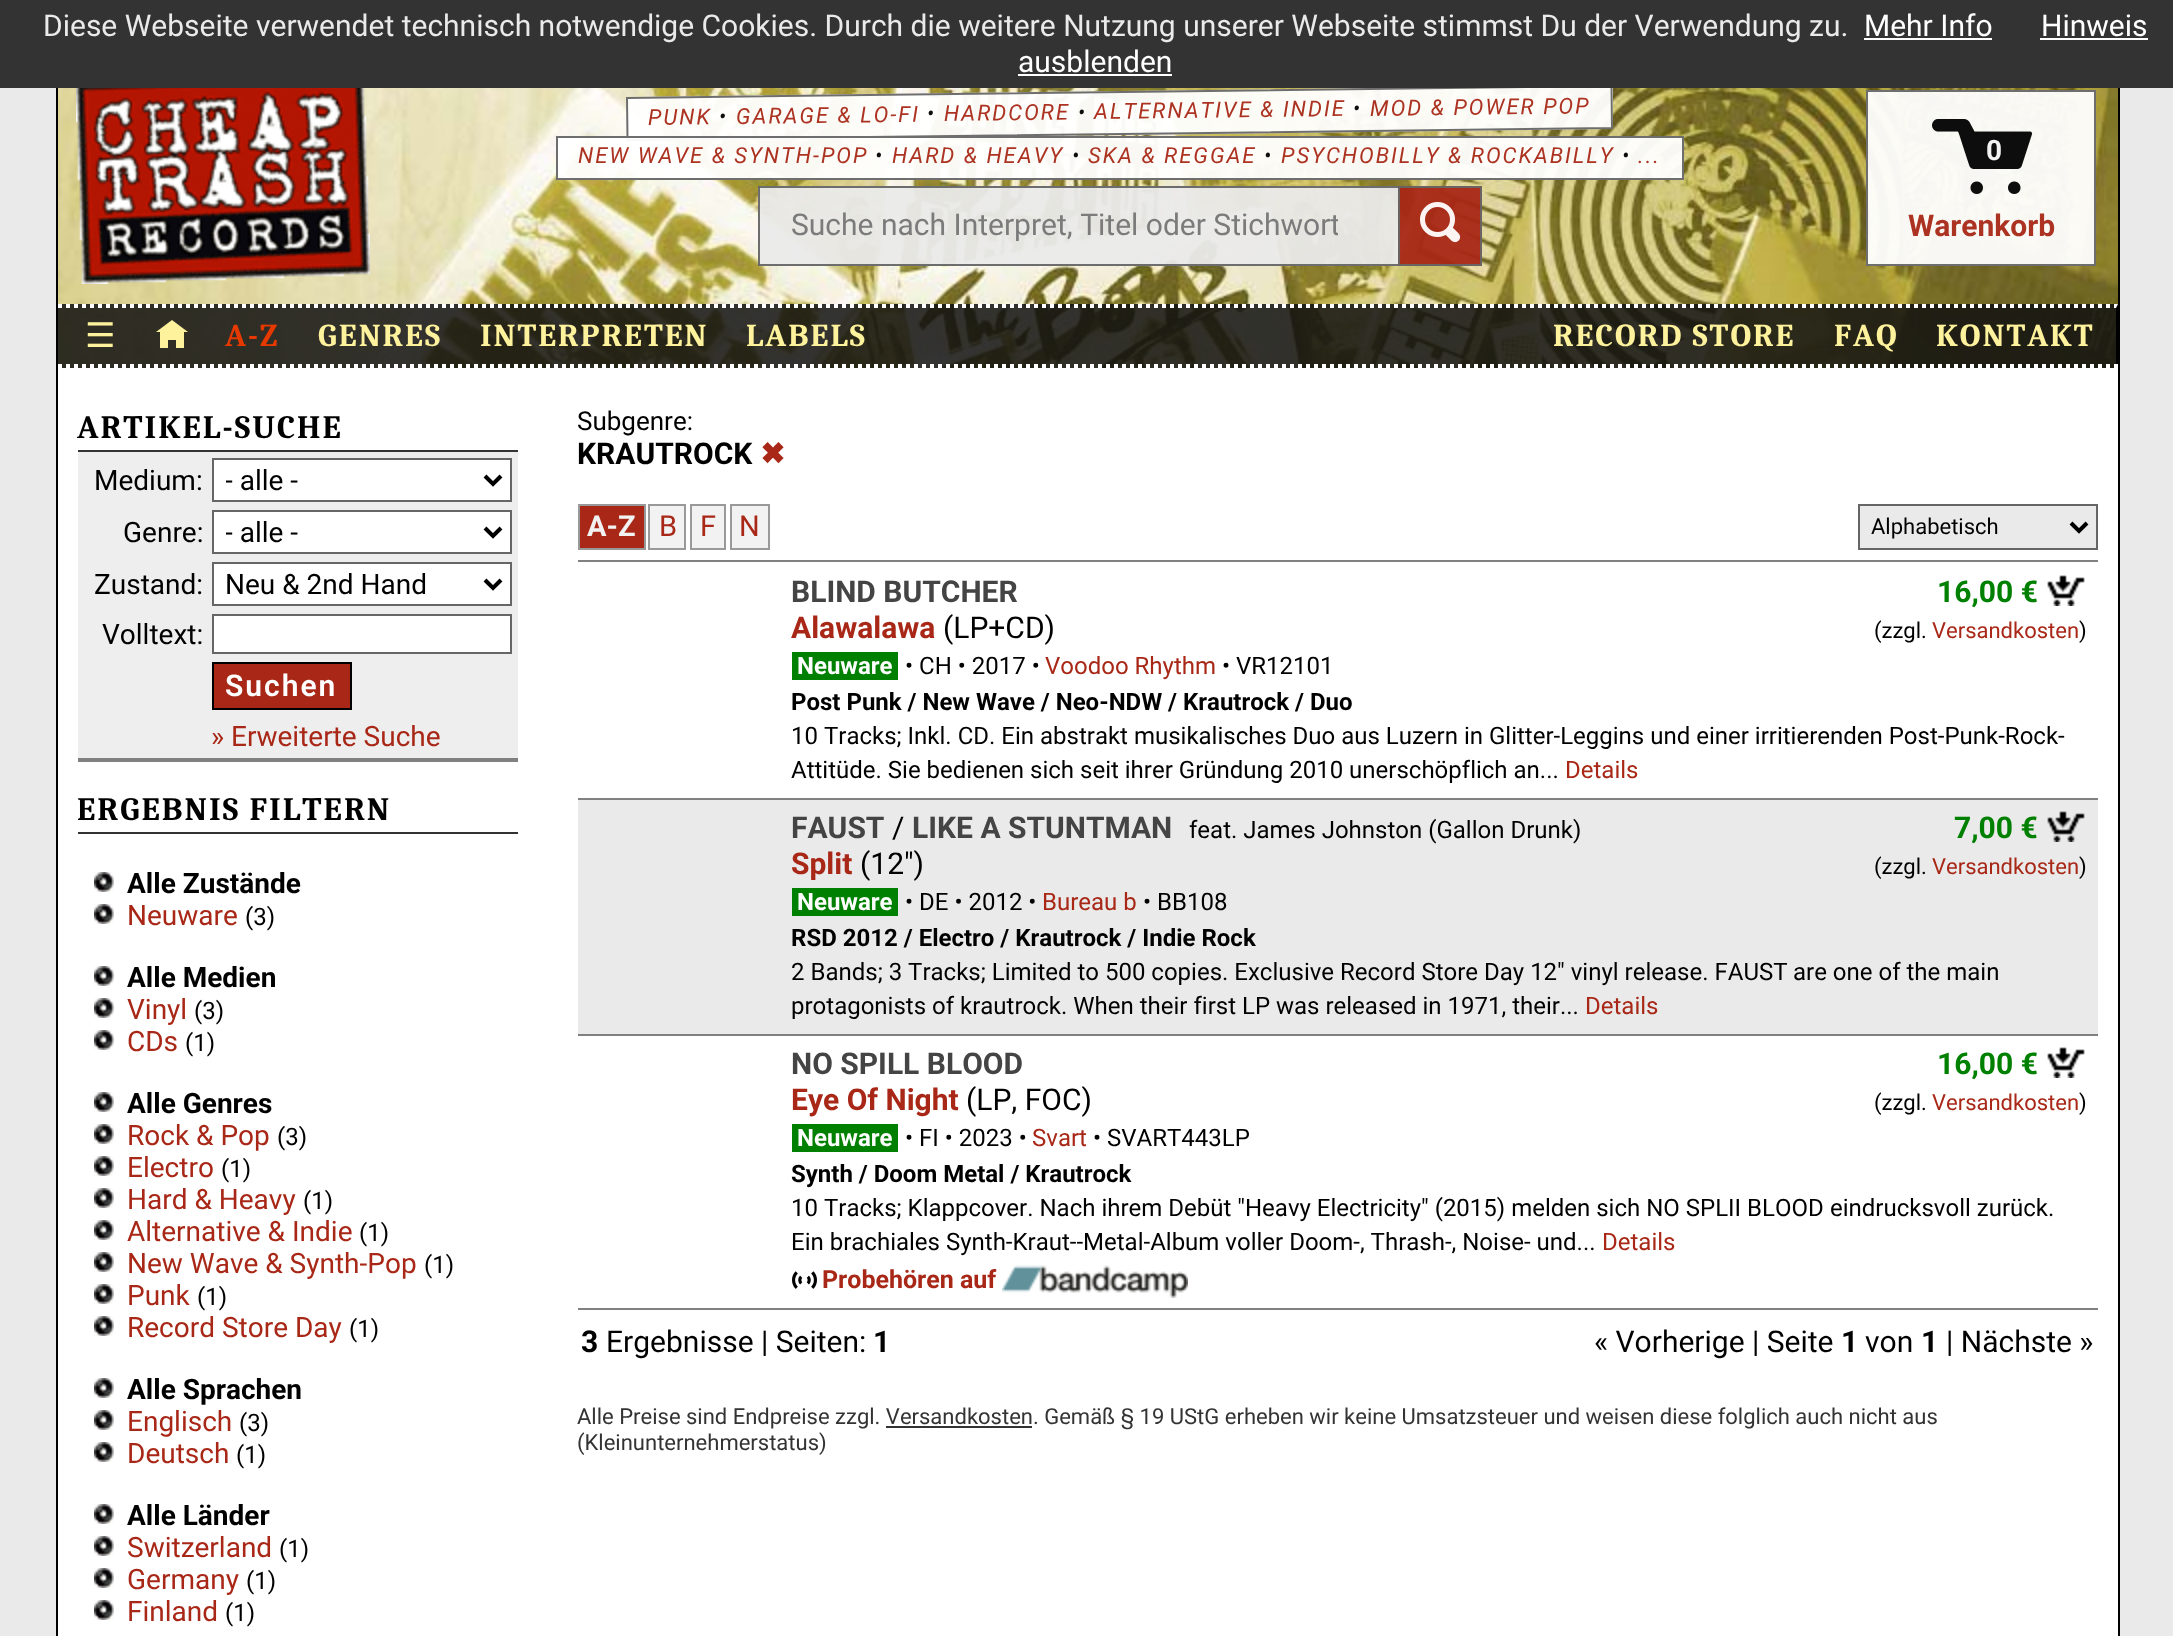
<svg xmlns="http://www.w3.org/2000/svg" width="2173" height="1636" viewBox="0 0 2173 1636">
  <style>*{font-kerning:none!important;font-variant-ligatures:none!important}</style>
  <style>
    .t1 { font: 30px Roboto; fill: #eaeaea; }
    .t2 { font: 30px Roboto; fill: #fff; }
    .t3 { font: italic 22px Roboto; letter-spacing: 2px; fill: #ac3221; }
    .t4 { font: italic 22px Roboto; letter-spacing: 2px; fill: #0d0d0d; }
    .t5 { font: 30px Roboto; fill: #7b7b7b; }
    .t6 { font: bold 28px Roboto; fill: #f2f2f2; }
    .t7 { font: bold 30px Roboto; fill: #ac3221; }
    .t8 { font: 34px DejaVu Sans; letter-spacing: 2px; fill: #fef29d; }
    .t9 { font: bold 32px Caladea; letter-spacing: 2px; fill: #e63900; }
    .t10 { font: bold 32px Caladea; letter-spacing: 2px; fill: #fef29d; }
    .t11 { font: bold 32.75px Caladea; letter-spacing: 2px; fill: #000; }
    .t12 { font: 28px Roboto; fill: #000; }
    .t13 { font: 600 30px Roboto; letter-spacing: 2px; fill: #fff; }
    .t14 { font: 28px Roboto; fill: #a82716; }
    .t15 { font: bold 28px Roboto; fill: #000; }
    .t16 { font: 24px Roboto; fill: #000; }
    .t17 { font: 26px Roboto; fill: #000; }
    .t18 { font: bold 30px Roboto; fill: #000; }
    .t19 { font: bold 30px DejaVu Sans; fill: #a82716; }
    .t20 { font: bold 29px Roboto; fill: #f2f2f2; }
    .t21 { font: 29px Roboto; fill: #a82716; }
    .t22 { font: 22px Roboto; fill: #000; }
    .t23 { font: bold 30px Roboto; fill: #444; }
    .t24 { font: bold 30px Roboto; fill: #008000; }
    .t25 { font: 22px Roboto; fill: #a82716; }
    .t26 { font: bold 30px Roboto; fill: #a82716; }
    .t27 { font: 30px Roboto; fill: #000; }
    .t28 { font: bold 24px Roboto; fill: #fff; }
    .t29 { font: 24px Roboto; fill: #a82716; }
    .t30 { font: bold 24px Roboto; fill: #000; }
    .t31 { font: bold 25px Roboto; fill: #a82716; }
    .t32 { font: 22px Roboto; fill: #333; }
  </style>
  <defs>
    <clipPath id="clip1"><rect x="792" y="208" width="546" height="36"/></clipPath>
    <clipPath id="clip2"><rect x="226" y="462" width="248" height="36"/></clipPath>
    <clipPath id="clip3"><rect x="226" y="514" width="248" height="36"/></clipPath>
  </defs>
  <rect width="100%" height="100%" fill="#eaeaea"/>
  <image x="58" y="88" width="2060" height="280" href="images/1.png"/>
  <path d="M626 97L1613 85V129L626 141Z" fill="#fffffff2"/>
  <path d="M627 98L1611.5 86L1612 128L627.5 140Z" fill="none" stroke="#666666f2" stroke-width="2"/>
  <rect x="0" y="0" width="2173" height="88" fill="#333"/>
  <text x="43" y="36" class="t1">Diese Webseite verwendet technisch notwendige Cookies. Durch die weitere Nutzung unserer Webseite stimmst Du der Verwendung zu.</text>
  <text x="1864" y="36" class="t2">Mehr Info</text>
  <rect x="1864" y="38" width="128" height="2" fill="#fff"/>
  <text x="2041" y="36" class="t2">Hinweis</text>
  <rect x="2040" y="38" width="108" height="2" fill="#fff"/>
  <text x="1018" y="72" class="t2">ausblenden</text>
  <rect x="1018" y="74" width="154" height="2" fill="#fff"/>
  <image x="76" y="88" width="294" height="196" href="images/2.png"/>
  <text x="648" y="125" transform="rotate(-0.7 648 125)" class="t3">PUNK</text>
  <text x="719" y="124" transform="rotate(-0.7 719 124)" class="t4">•</text>
  <text x="736" y="124" transform="rotate(-0.7 736 124)" class="t3">GARAGE &amp; LO-FI</text>
  <text x="927" y="121" transform="rotate(-0.7 927 121)" class="t4">•</text>
  <text x="944" y="121" transform="rotate(-0.7 944 121)" class="t3">HARDCORE</text>
  <text x="1078" y="120" transform="rotate(-0.7 1078 120)" class="t4">•</text>
  <text x="1094" y="119" transform="rotate(-0.7 1094 119)" class="t3">ALTERNATIVE &amp; INDIE</text>
  <text x="1353" y="116" transform="rotate(-0.7 1353 116)" class="t4">•</text>
  <text x="1370" y="116" transform="rotate(-0.7 1370 116)" class="t3">MOD &amp; POWER POP</text>
  <rect x="556" y="136" width="1128" height="44" fill="#fffffff2"/>
  <rect x="557" y="137" width="1126" height="42" fill="none" stroke="#666666f2" stroke-width="2"/>
  <text x="578" y="163" class="t3">NEW WAVE &amp; SYNTH-POP</text>
  <text x="875" y="163" class="t4">•</text>
  <text x="892" y="163" class="t3">HARD &amp; HEAVY</text>
  <text x="1072" y="163" class="t4">•</text>
  <text x="1088" y="163" class="t3">SKA &amp; REGGAE</text>
  <text x="1264" y="163" class="t4">•</text>
  <text x="1281" y="163" class="t3">PSYCHOBILLY &amp; ROCKABILLY</text>
  <text x="1622" y="163" class="t4">•</text>
  <text x="1638" y="163" class="t3">...</text>
  <rect x="758" y="186" width="640" height="80" fill="#eaeaeaf2"/>
  <rect x="758" y="186" width="640" height="2" fill="#666666f2"/>
  <rect x="758" y="264" width="640" height="2" fill="#666666f2"/>
  <rect x="758" y="186" width="2" height="80" fill="#666666f2"/>
  <g clip-path="url(#clip1)">
    <text x="791" y="235" class="t5">Suche nach Interpret, Titel oder Stichwort</text>
  </g>
  <rect x="1398" y="186" width="84" height="80" fill="#a82716f2"/>
  <rect x="1399" y="187" width="82" height="78" fill="none" stroke="#666666f2" stroke-width="2"/>
  <image x="1420" y="202" width="41" height="41" href="images/3.png"/>
  <rect x="1866" y="90" width="230" height="176" fill="#fffffff2"/>
  <rect x="1867" y="91" width="228" height="174" fill="none" stroke="#666666f2" stroke-width="2"/>
  <image x="1932" y="119" width="100" height="75" href="images/4.png"/>
  <text x="1986" y="160" class="t6">0</text>
  <text x="1908" y="236" class="t7">Warenkorb</text>
  <rect x="58" y="304" width="2058" height="64" fill="#111111d9"/>
  <path d="M58 306H2118" fill="none" stroke="#fff" stroke-width="4" stroke-dasharray="4 4"/>
  <path d="M2118 304V368L2116 364V308Z" fill="#000"/>
  <path d="M58 366H2118" fill="none" stroke="#fff" stroke-width="4" stroke-dasharray="4 4"/>
  <text x="85" y="347" class="t8">☰</text>
  <path d="M172 320L188 332H184V348H176V340H168V348H160V332H156Z" fill="#fef29d"/>
  <text x="225" y="346" class="t9">A-Z</text>
  <text x="318" y="346" class="t10">GENRES</text>
  <text x="480" y="346" class="t10">INTERPRETEN</text>
  <text x="746" y="346" class="t10">LABELS</text>
  <text x="1553" y="346" class="t10">RECORD STORE</text>
  <text x="1834" y="346" class="t10">FAQ</text>
  <text x="1936" y="346" class="t10">KONTAKT</text>
  <rect x="58" y="368" width="2060" height="1268" fill="#fff"/>
  <rect x="2118" y="88" width="2" height="1548" fill="#000"/>
  <rect x="56" y="88" width="2" height="1548" fill="#000"/>
  <rect x="78" y="450" width="440" height="2" fill="#333"/>
  <text x="77" y="438" class="t11">ARTIKEL-SUCHE</text>
  <rect x="78" y="452" width="440" height="306" fill="#eee"/>
  <rect x="78" y="758" width="440" height="4" fill="#808080"/>
  <text x="94" y="490" class="t12">Medium:</text>
  <rect x="213" y="459" width="298" height="42" fill="#fff" stroke="#666" stroke-width="2"/>
  <path d="M485 476L493 484L501 476" fill="none" stroke="#000" stroke-width="4"/>
  <g clip-path="url(#clip2)">
    <text x="225" y="490" class="t12">- alle -</text>
  </g>
  <text x="123" y="542" class="t12">Genre:</text>
  <rect x="213" y="511" width="298" height="42" fill="#fff" stroke="#666" stroke-width="2"/>
  <path d="M485 528L493 536L501 528" fill="none" stroke="#000" stroke-width="4"/>
  <g clip-path="url(#clip3)">
    <text x="225" y="542" class="t12">- alle -</text>
  </g>
  <text x="94" y="594" class="t12">Zustand:</text>
  <rect x="213" y="563" width="298" height="42" fill="#fff" stroke="#666" stroke-width="2"/>
  <path d="M485 580L493 588L501 580" fill="none" stroke="#000" stroke-width="4"/>
  <text x="225" y="594" class="t12">Neu &amp; 2nd Hand</text>
  <text x="102" y="644" class="t12">Volltext:</text>
  <rect x="213" y="615" width="298" height="38" fill="#fff" stroke="#666" stroke-width="2"/>
  <rect x="213" y="663" width="138" height="46" fill="#a82716" stroke="#000" stroke-width="2"/>
  <text x="225" y="696" class="t13">Suchen</text>
  <text x="211" y="746" class="t14">» Erweiterte Suche</text>
  <rect x="78" y="832" width="440" height="2" fill="#333"/>
  <text x="77" y="820" class="t11">ERGEBNIS FILTERN</text>
  <image x="94" y="872" width="20" height="20" href="images/5.png"/>
  <text x="127" y="893" class="t15">Alle Zustände</text>
  <image x="94" y="904" width="20" height="20" href="images/5.png"/>
  <text x="127" y="925" class="t14">Neuware</text>
  <text x="245" y="925" class="t16">(3)</text>
  <image x="94" y="966" width="20" height="20" href="images/5.png"/>
  <text x="127" y="987" class="t15">Alle Medien</text>
  <image x="94" y="998" width="20" height="20" href="images/5.png"/>
  <text x="127" y="1019" class="t14">Vinyl</text>
  <text x="194" y="1019" class="t16">(3)</text>
  <image x="94" y="1030" width="20" height="20" href="images/5.png"/>
  <text x="127" y="1051" class="t14">CDs</text>
  <text x="185" y="1051" class="t16">(1)</text>
  <image x="94" y="1092" width="20" height="20" href="images/5.png"/>
  <text x="127" y="1113" class="t15">Alle Genres</text>
  <image x="94" y="1124" width="20" height="20" href="images/5.png"/>
  <text x="127" y="1145" class="t14">Rock &amp; Pop</text>
  <text x="277" y="1145" class="t16">(3)</text>
  <image x="94" y="1156" width="20" height="20" href="images/5.png"/>
  <text x="127" y="1177" class="t14">Electro</text>
  <text x="221" y="1177" class="t16">(1)</text>
  <image x="94" y="1188" width="20" height="20" href="images/5.png"/>
  <text x="127" y="1209" class="t14">Hard &amp; Heavy</text>
  <text x="303" y="1209" class="t16">(1)</text>
  <image x="94" y="1220" width="20" height="20" href="images/5.png"/>
  <text x="127" y="1241" class="t14">Alternative &amp; Indie</text>
  <text x="359" y="1241" class="t16">(1)</text>
  <image x="94" y="1252" width="20" height="20" href="images/5.png"/>
  <text x="127" y="1273" class="t14">New Wave &amp; Synth-Pop</text>
  <text x="424" y="1273" class="t16">(1)</text>
  <image x="94" y="1284" width="20" height="20" href="images/5.png"/>
  <text x="127" y="1305" class="t14">Punk</text>
  <text x="197" y="1305" class="t16">(1)</text>
  <image x="94" y="1316" width="20" height="20" href="images/5.png"/>
  <text x="127" y="1337" class="t14">Record Store Day</text>
  <text x="349" y="1337" class="t16">(1)</text>
  <image x="94" y="1378" width="20" height="20" href="images/5.png"/>
  <text x="127" y="1399" class="t15">Alle Sprachen</text>
  <image x="94" y="1410" width="20" height="20" href="images/5.png"/>
  <text x="127" y="1431" class="t14">Englisch</text>
  <text x="239" y="1431" class="t16">(3)</text>
  <image x="94" y="1442" width="20" height="20" href="images/5.png"/>
  <text x="127" y="1463" class="t14">Deutsch</text>
  <text x="236" y="1463" class="t16">(1)</text>
  <image x="94" y="1504" width="20" height="20" href="images/5.png"/>
  <text x="127" y="1525" class="t15">Alle Länder</text>
  <image x="94" y="1536" width="20" height="20" href="images/5.png"/>
  <text x="127" y="1557" class="t14">Switzerland</text>
  <text x="279" y="1557" class="t16">(1)</text>
  <image x="94" y="1568" width="20" height="20" href="images/5.png"/>
  <text x="127" y="1589" class="t14">Germany</text>
  <text x="246" y="1589" class="t16">(1)</text>
  <image x="94" y="1600" width="20" height="20" href="images/5.png"/>
  <text x="127" y="1621" class="t14">Finland</text>
  <text x="225" y="1621" class="t16">(1)</text>
  <text x="577" y="430" class="t17">Subgenre:</text>
  <text x="577" y="464" class="t18">KRAUTROCK</text>
  <text x="760" y="464" class="t19">✖︎</text>
  <rect x="578" y="560" width="1520" height="2" fill="#808080"/>
  <rect x="579" y="505" width="66" height="44" fill="#a82716" stroke="#999" stroke-width="2"/>
  <text x="587" y="536" class="t20">A-Z</text>
  <rect x="649" y="505" width="36" height="44" fill="#f2f2f2" stroke="#999" stroke-width="2"/>
  <text x="659" y="536" class="t21">B</text>
  <rect x="691" y="505" width="34" height="44" fill="#f2f2f2" stroke="#999" stroke-width="2"/>
  <text x="700" y="536" class="t21">F</text>
  <rect x="731" y="505" width="38" height="44" fill="#f2f2f2" stroke="#999" stroke-width="2"/>
  <text x="739" y="536" class="t21">N</text>
  <rect x="1859" y="505" width="238" height="44" fill="#eaeaea" stroke="#666" stroke-width="2"/>
  <path d="M2071 523L2079 531L2087 523" fill="none" stroke="#000" stroke-width="4"/>
  <text x="1871" y="534" class="t22">Alphabetisch</text>
  <rect x="578" y="798" width="1520" height="2" fill="#808080"/>
  <text x="791" y="602" class="t23">BLIND BUTCHER</text>
  <text x="1937" y="602" class="t24">16,00 €</text>
  <image x="2047" y="575" width="38" height="31" href="images/6.png"/>
  <text x="1874" y="638" class="t22">(zzgl.</text>
  <text x="1932" y="638" class="t25">Versandkosten</text>
  <text x="2079" y="638" class="t22">)</text>
  <text x="791" y="638" class="t26">Alawalawa</text>
  <text x="943" y="638" class="t27">(LP+CD)</text>
  <rect x="792" y="652" width="106" height="28" fill="#008000"/>
  <text x="797" y="674" class="t28">Neuware</text>
  <text x="905" y="674" class="t16">• CH • 2017 •</text>
  <text x="1045" y="674" class="t29">Voodoo Rhythm</text>
  <text x="1222" y="674" class="t16">• VR12101</text>
  <text x="791" y="710" class="t30">Post Punk / New Wave / Neo-NDW / Krautrock / Duo</text>
  <text x="791" y="744" class="t16">10 Tracks; Inkl. CD. Ein abstrakt musikalisches Duo aus Luzern in Glitter-Leggins und einer irritierenden Post-Punk-Rock-</text>
  <text x="791" y="778" class="t16">Attitüde. Sie bedienen sich seit ihrer Gründung 2010 unerschöpflich an...</text>
  <text x="1565" y="778" class="t29">Details</text>
  <rect x="578" y="800" width="1520" height="234" fill="#eaeaea"/>
  <rect x="578" y="1034" width="1520" height="2" fill="#808080"/>
  <text x="791" y="838" class="t23">FAUST</text>
  <text x="892" y="838" class="t27">/</text>
  <text x="912" y="838" class="t23">LIKE A STUNTMAN</text>
  <text x="1189" y="838" class="t16">feat. James Johnston (Gallon Drunk)</text>
  <text x="1954" y="838" class="t24">7,00 €</text>
  <image x="2047" y="811" width="38" height="31" href="images/7.png"/>
  <text x="1874" y="874" class="t22">(zzgl.</text>
  <text x="1932" y="874" class="t25">Versandkosten</text>
  <text x="2079" y="874" class="t22">)</text>
  <text x="791" y="874" class="t26">Split</text>
  <text x="860" y="874" class="t27">(12")</text>
  <rect x="792" y="888" width="106" height="28" fill="#008000"/>
  <text x="797" y="910" class="t28">Neuware</text>
  <text x="905" y="910" class="t16">• DE • 2012 •</text>
  <text x="1042" y="910" class="t29">Bureau b</text>
  <text x="1143" y="910" class="t16">• BB108</text>
  <text x="791" y="946" class="t30">RSD 2012 / Electro / Krautrock / Indie Rock</text>
  <text x="791" y="980" class="t16">2 Bands; 3 Tracks; Limited to 500 copies. Exclusive Record Store Day 12" vinyl release. FAUST</text>
  <text x="1793" y="980" class="t16">are one of the main</text>
  <text x="791" y="1014" class="t16">protagonists of krautrock. When their first LP was released in 1971, their...</text>
  <text x="1585" y="1014" class="t29">Details</text>
  <rect x="578" y="1308" width="1520" height="2" fill="#808080"/>
  <text x="791" y="1074" class="t23">NO SPILL BLOOD</text>
  <text x="966" y="1110" class="t27">(LP, FOC)</text>
  <text x="1937" y="1074" class="t24">16,00 €</text>
  <image x="2047" y="1047" width="38" height="31" href="images/6.png"/>
  <text x="1874" y="1110" class="t22">(zzgl.</text>
  <text x="1932" y="1110" class="t25">Versandkosten</text>
  <text x="2079" y="1110" class="t22">)</text>
  <text x="791" y="1110" class="t26">Eye Of Night</text>
  <rect x="792" y="1124" width="106" height="28" fill="#008000"/>
  <text x="797" y="1146" class="t28">Neuware</text>
  <text x="905" y="1146" class="t16">• FI • 2023 •</text>
  <text x="1032" y="1146" class="t29">Svart</text>
  <text x="1093" y="1146" class="t16">• SVART443LP</text>
  <text x="791" y="1182" class="t30">Synth / Doom Metal / Krautrock</text>
  <text x="791" y="1216" class="t16">10 Tracks; Klappcover. Nach ihrem Debüt "Heavy Electricity" (2015) melden sich NO SPLII BLOOD</text>
  <text x="1830" y="1216" class="t16">eindrucksvoll zurück.</text>
  <text x="791" y="1250" class="t16">Ein brachiales Synth-Kraut--Metal-Album voller Doom-, Thrash-, Noise- und...</text>
  <text x="1602" y="1250" class="t29">Details</text>
  <image x="792" y="1271" width="25" height="18" href="images/8.png"/>
  <text x="822" y="1288" class="t31">Probehören auf</text>
  <image x="1002" y="1265" width="186" height="33" href="images/9.png"/>
  <text x="581" y="1352" class="t18">3</text>
  <text x="606" y="1352" class="t27">Ergebnisse | Seiten:</text>
  <text x="873" y="1352" class="t18">1</text>
  <text x="1594" y="1352" class="t27">« Vorherige | Seite</text>
  <text x="1841" y="1352" class="t18">1</text>
  <text x="1865" y="1352" class="t27">von</text>
  <text x="1921" y="1352" class="t18">1</text>
  <text x="1946" y="1352" class="t27">| Nächste »</text>
  <text x="577" y="1424" class="t32">Alle Preise sind Endpreise zzgl. Versandkosten. Gemäß § 19 UStG erheben wir keine Umsatzsteuer und weisen diese folglich auch nicht aus</text>
  <rect x="886" y="1426" width="146" height="2" fill="#333"/>
  <text x="577" y="1450" class="t32">(Kleinunternehmerstatus)</text>
</svg>
